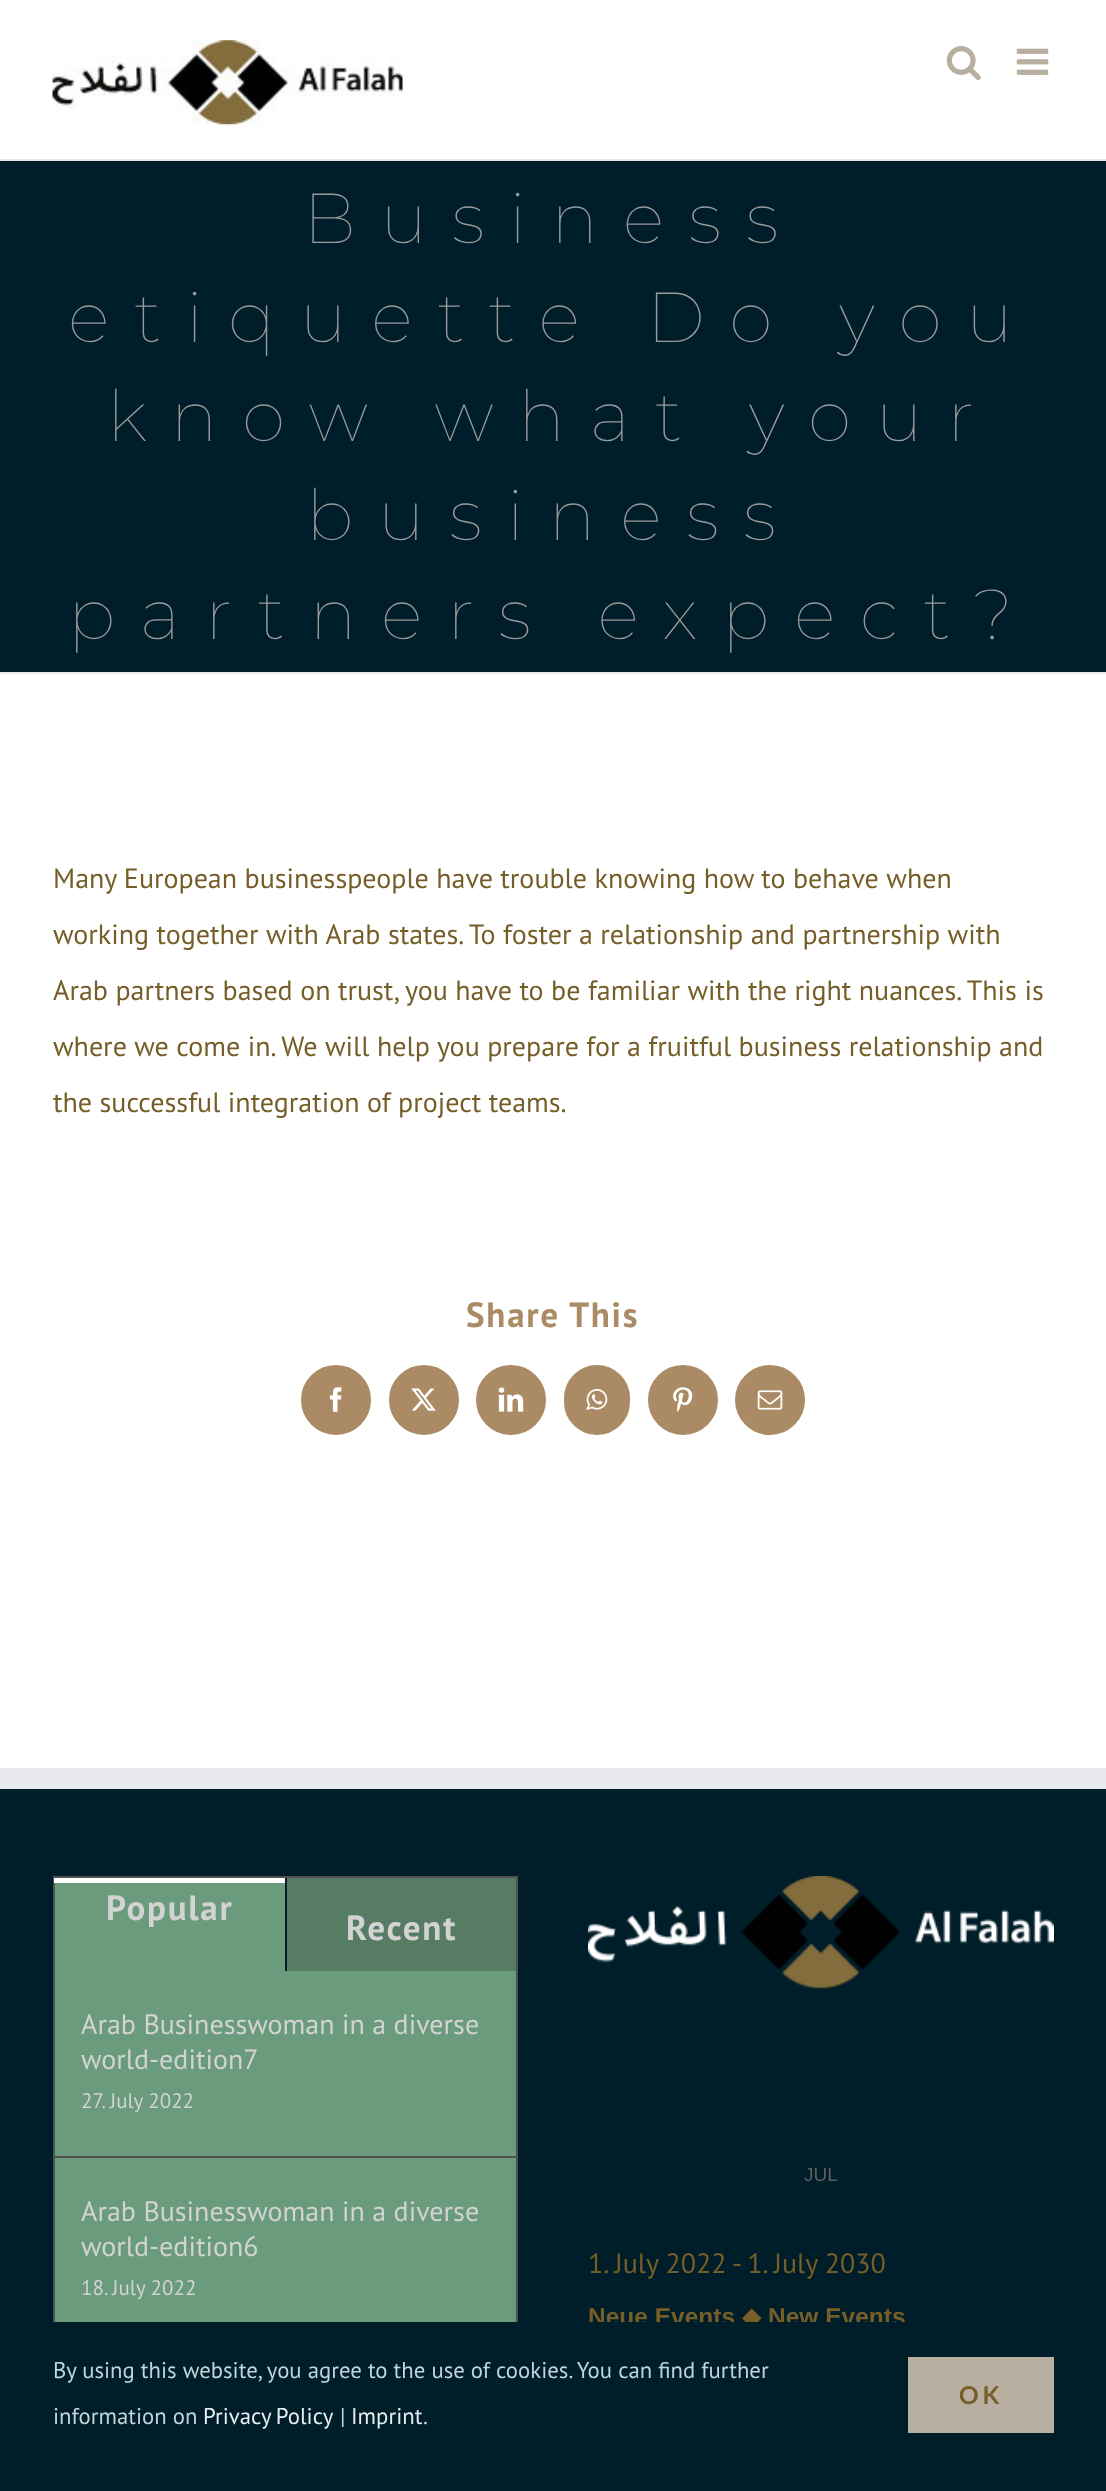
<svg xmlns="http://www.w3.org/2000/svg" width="1106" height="2491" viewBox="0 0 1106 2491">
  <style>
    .t1 { font: 100 70.6px Montserrat; letter-spacing: 24.5px; fill: #999; }
    .t2 { font: 28px PT Sans; fill: #755e28; }
    .t3 { font: bold 35px PT Sans; letter-spacing: 1.75px; fill: #ab8b65; }
    .t4 { font: bold 35px PT Sans; letter-spacing: 1.75px; fill: #d3d3d3; }
    .t5 { font: 28px PT Sans; fill: #d3d3d3; }
    .t6 { font: 21px PT Sans; fill: #d3d3d3; }
    .t7 { font: 19px Liberation Sans; fill: #5d5d5d; }
    .t8 { font: bold 24.5px Liberation Sans; fill: #755e28; }
    .t9 { font: bold 24.5px DejaVu Sans; fill: #755e28; }
    .t10 { font: 22.75px PT Sans; fill: #c0d5db; }
    .t11 { font: 22.75px PT Sans; fill: #e6eff2; }
    .t12 { font: bold 24.5px Lato; letter-spacing: 4px; fill: #755e28; }
  </style>
  <rect width="100%" height="100%" fill="#fff"/>
  <image x="52" y="40" width="351" height="85" href="images/1.png"/>
  <image x="946" y="46" width="35" height="35" href="images/2.png"/>
  <image x="1016" y="48" width="33" height="27" href="images/3.png"/>
  <rect x="0" y="161" width="1106" height="511" fill="#001e29"/>
  <rect x="0" y="159" width="1106" height="2" fill="#e8e8e8"/>
  <rect x="0" y="672" width="1106" height="2" fill="#e8e8e8"/>
  <text x="303" y="243" class="t1">Business</text>
  <text x="68" y="342" class="t1">etiquette Do you</text>
  <text x="107" y="441" class="t1">know what your</text>
  <text x="306" y="540" class="t1">business</text>
  <text x="68" y="639" class="t1">partners expect?</text>
  <text x="53" y="888" class="t2">Many European businesspeople have trouble knowing how to behave when</text>
  <text x="53" y="944" class="t2">working together with Arab states. To foster a relationship and partnership with</text>
  <text x="53" y="1000" class="t2">Arab partners based on trust, you have to be familiar with the right nuances. This is</text>
  <text x="53" y="1056" class="t2">where we come in. We will help you prepare for a fruitful business relationship and</text>
  <text x="53" y="1112" class="t2">the successful integration of project teams.</text>
  <text x="466" y="1327" class="t3">Share This</text>
  <circle cx="336" cy="1400" r="34" fill="#ab8b65" stroke="#ab8b65" stroke-width="2"/>
  <image x="329" y="1387" width="13" height="25" href="images/4.png"/>
  <circle cx="424" cy="1400" r="34" fill="#ab8b65" stroke="#ab8b65" stroke-width="2"/>
  <image x="411" y="1388" width="25" height="23" href="images/5.png"/>
  <circle cx="511" cy="1400" r="34" fill="#ab8b65" stroke="#ab8b65" stroke-width="2"/>
  <image x="498" y="1387" width="26" height="25" href="images/6.png"/>
  <rect x="565" y="1366" width="64" height="68" rx="32" fill="#ab8b65" stroke="#ab8b65" stroke-width="2"/>
  <image x="586" y="1389" width="22" height="22" href="images/7.png"/>
  <circle cx="683" cy="1400" r="34" fill="#ab8b65" stroke="#ab8b65" stroke-width="2"/>
  <image x="673" y="1387" width="20" height="25" href="images/8.png"/>
  <circle cx="770" cy="1400" r="34" fill="#ab8b65" stroke="#ab8b65" stroke-width="2"/>
  <image x="757" y="1390" width="26" height="20" href="images/9.png"/>
  <rect x="0" y="1789" width="1106" height="533" fill="#001e29"/>
  <rect x="0" y="1768" width="1106" height="21" fill="#e9eaee"/>
  <rect x="55" y="1883" width="461" height="439" fill="#6b9b7d"/>
  <rect x="54" y="1877" width="463" height="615" fill="none" stroke="#505152" stroke-width="2"/>
  <rect x="285" y="1878" width="2" height="93" fill="#001e29"/>
  <rect x="54" y="1878" width="231" height="5" fill="#fff"/>
  <text x="106" y="1920" class="t4">Popular</text>
  <rect x="287" y="1878" width="229" height="93" fill="#567c64"/>
  <text x="346" y="1940" class="t4">Recent</text>
  <rect x="54" y="2156" width="462" height="2" fill="#505152"/>
  <text x="81" y="2034" class="t5">Arab Businesswoman in a diverse</text>
  <text x="81" y="2069" class="t5">world-edition7</text>
  <text x="81" y="2108" class="t6">27. July 2022</text>
  <text x="81" y="2221" class="t5">Arab Businesswoman in a diverse</text>
  <text x="81" y="2256" class="t5">world-edition6</text>
  <text x="81" y="2295" class="t6">18. July 2022</text>
  <image x="588" y="1876" width="466" height="114" href="images/10.png"/>
  <text x="804" y="2181" class="t7">JUL</text>
  <text x="588" y="2273" class="t2">1. July 2022</text>
  <text x="732" y="2273" class="t2">- 1. July 2030</text>
  <text x="588" y="2325" class="t8">Neue Events</text>
  <text x="742" y="2325" class="t9">◆</text>
  <text x="768" y="2325" class="t8">New Events</text>
  <rect x="0" y="2322" width="1106" height="169" fill="#001e29"/>
  <text x="53" y="2378" class="t10">By using this website, you agree to the use of cookies. You can find further</text>
  <text x="53" y="2424" class="t10">information on</text>
  <text x="203" y="2424" word-spacing="-1" class="t11">Privacy Policy</text>
  <text x="340" y="2424" class="t10">|</text>
  <text x="351" y="2424" class="t11">Imprint</text>
  <text x="423" y="2424" class="t10">.</text>
  <rect x="908" y="2357" width="146" height="76" fill="#b9afa1"/>
  <text x="959" y="2404" class="t12">OK</text>
</svg>
